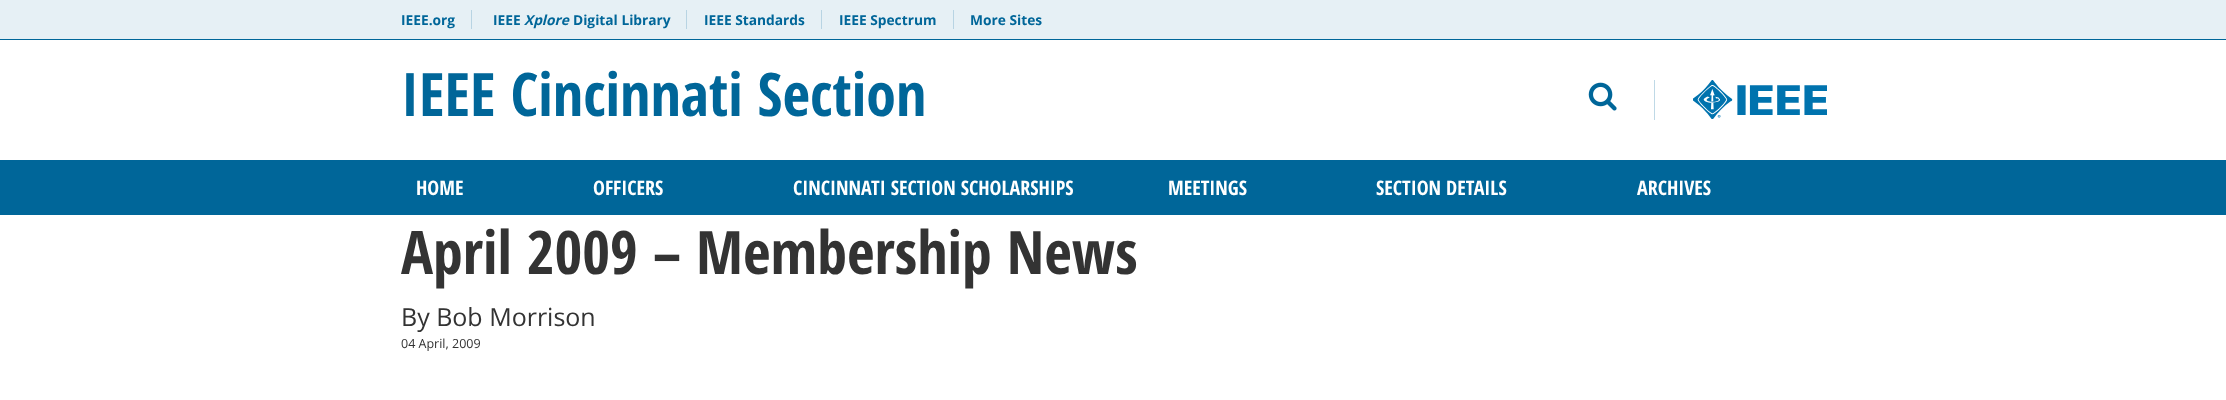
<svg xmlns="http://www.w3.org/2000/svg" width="2226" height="400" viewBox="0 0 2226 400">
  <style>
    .t1 { font: bold 13.75px Open Sans; fill: #069; }
    .t2 { font: italic bold 13.75px Open Sans; fill: #069; }
    .t3 { font: bold 60px Open Sans Condensed; fill: #069; }
    .t4 { font: bold 20px Open Sans Condensed; fill: #fff; }
    .t5 { font: bold 60px Open Sans Condensed; fill: #333; }
    .t6 { font: 25px Open Sans; fill: #333; }
    .t7 { font: 12.5px Open Sans; fill: #333; }
  </style>
  <rect width="100%" height="100%" fill="#fff"/>
  <rect x="0" y="0" width="2226" height="39" fill="#e6f0f5"/>
  <rect x="0" y="39" width="2226" height="1" fill="#069"/>
  <text x="401" y="25" class="t1">IEEE.org</text>
  <rect x="471" y="10" width="1" height="19" fill="#b8d4e3"/>
  <text x="493" y="25" class="t1">IEEE</text>
  <text x="524" y="25" class="t2">Xplore</text>
  <text x="573" y="25" class="t1">Digital Library</text>
  <rect x="686" y="10" width="1" height="19" fill="#b8d4e3"/>
  <text x="704" y="25" class="t1">IEEE Standards</text>
  <rect x="821" y="10" width="1" height="19" fill="#b8d4e3"/>
  <text x="839" y="25" class="t1">IEEE Spectrum</text>
  <rect x="953" y="10" width="1" height="19" fill="#b8d4e3"/>
  <text x="970" y="25" class="t1">More Sites</text>
  <text x="401" y="116" class="t3">IEEE Cincinnati Section</text>
  <image x="1588" y="82" width="29" height="29" href="images/1.png"/>
  <rect x="1654" y="80" width="1" height="40" fill="#bfd9e6"/>
  <image x="1693" y="80" width="134" height="39" href="images/2.png"/>
  <rect x="0" y="160" width="2226" height="55" fill="#069"/>
  <text x="416" y="195" class="t4">HOME</text>
  <text x="593" y="195" class="t4">OFFICERS</text>
  <text x="793" y="195" class="t4">CINCINNATI SECTION SCHOLARSHIPS</text>
  <text x="1168" y="195" class="t4">MEETINGS</text>
  <text x="1376" y="195" class="t4">SECTION DETAILS</text>
  <text x="1637" y="195" class="t4">ARCHIVES</text>
  <text x="401" y="274" class="t5">April 2009 – Membership News</text>
  <text x="401" y="326" class="t6">By Bob Morrison</text>
  <text x="401" y="348" class="t7">04 April, 2009</text>
</svg>
